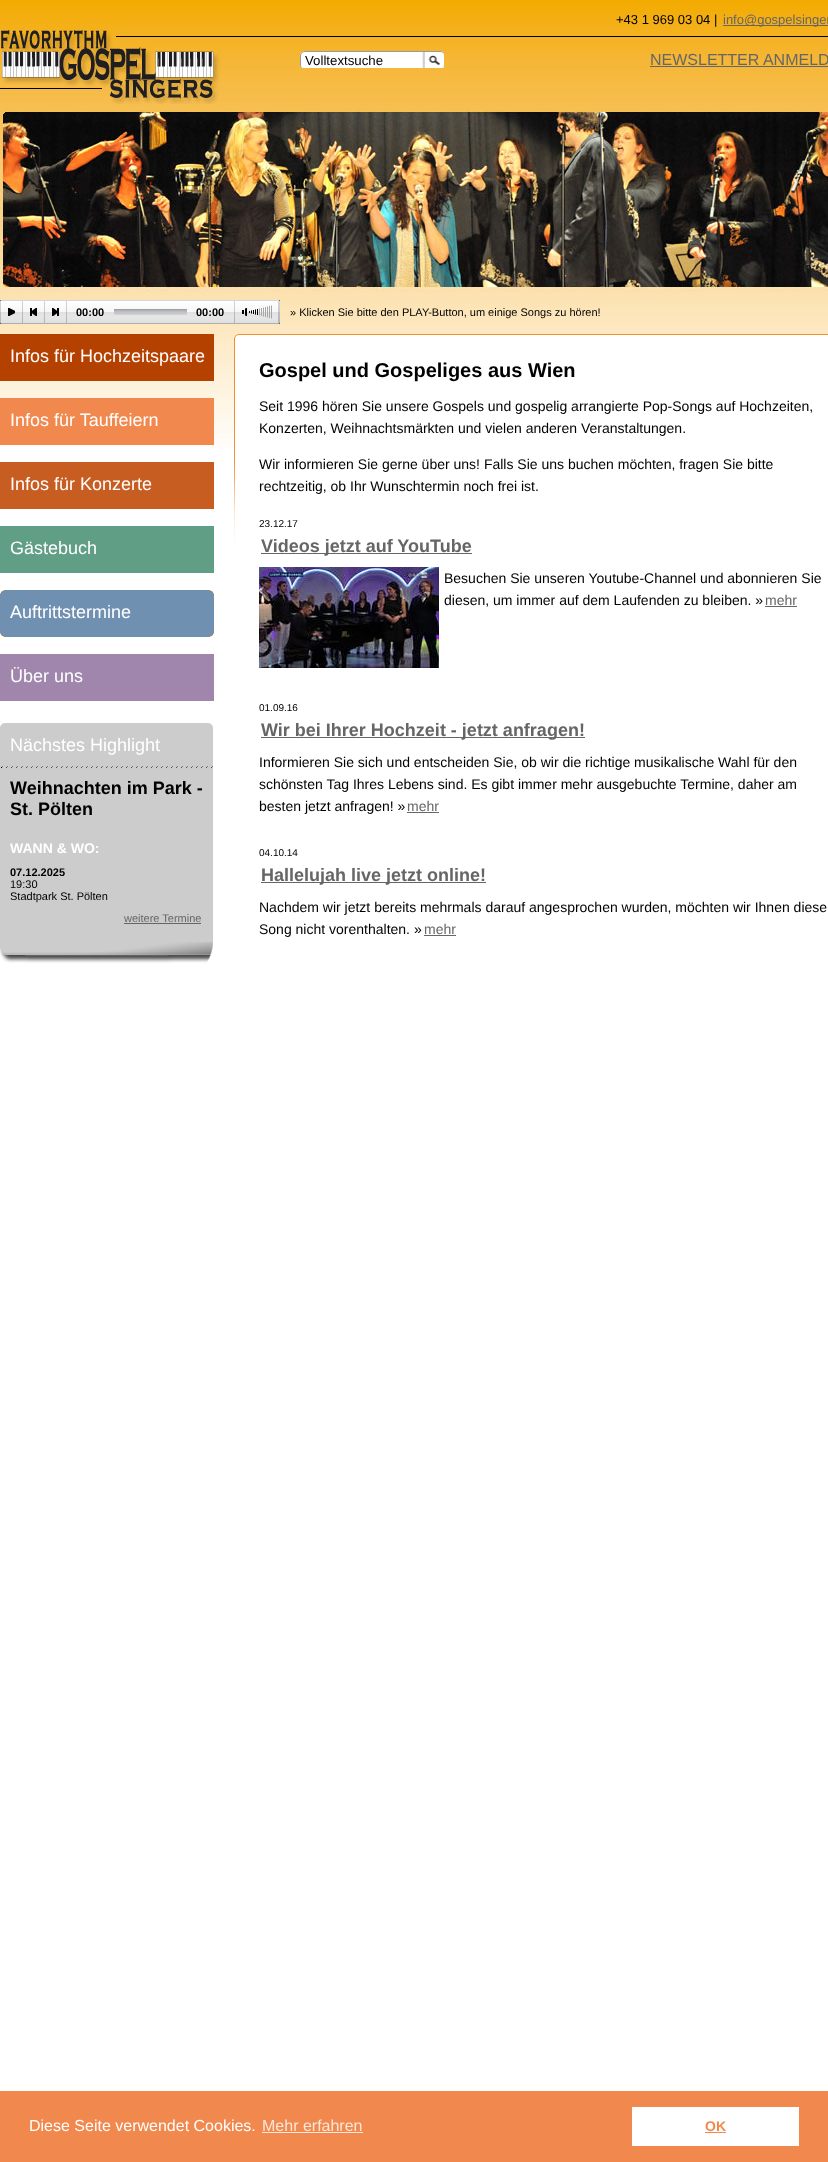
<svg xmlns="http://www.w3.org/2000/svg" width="828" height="2162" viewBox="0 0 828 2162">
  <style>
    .t1 { font: 13px Liberation Sans; fill: #000; }
    .t2 { font: 13px Liberation Sans; fill: #666; }
    .t3 { font: 13.25px Liberation Sans; fill: #000; }
    .t4 { font: 16px Liberation Sans; fill: #666; }
    .t5 { font: bold 11px Liberation Sans; fill: #000; }
    .t6 { font: 11px Liberation Sans; fill: #000; }
    .t7 { font: 18px Liberation Sans; fill: #fff; }
    .t8 { font: bold 18px Liberation Sans; fill: #000; }
    .t9 { font: bold 14px Liberation Sans; fill: #fff; }
    .t10 { font: 11px Liberation Sans; fill: #666; }
    .t11 { font: bold 20px Liberation Sans; fill: #000; }
    .t12 { font: 14px Liberation Sans; fill: #000; }
    .t13 { font: 10px Liberation Sans; fill: #000; }
    .t14 { font: bold 18px Liberation Sans; fill: #666; }
    .t15 { font: 14px Liberation Sans; fill: #666; }
    .t16 { font: 16px Liberation Sans; fill: #fff; }
    .t17 { font: 16px Liberation Sans; fill: #fce7db; }
    .t18 { font: bold 14px Liberation Sans; fill: #f1884d; }
  </style>
  <rect width="100%" height="100%" fill="#fff"/>
  <image x="0" y="0" width="828" height="448" href="images/1.png"/>
  <image x="0" y="24" width="828" height="80" href="images/2.png"/>
  <text x="616" y="24" class="t1">+43 1 969 03 04 |</text>
  <rect x="723" y="25" width="105" height="1" fill="#666"/>
  <text x="723" y="24" class="t2">info@gospelsinger</text>
  <image x="300" y="51" width="144" height="17" href="images/3.png"/>
  <text x="305" y="65" class="t3">Volltextsuche</text>
  <text x="650" y="65" class="t4">NEWSLETTER ANMELD</text>
  <rect x="650" y="66" width="178" height="1" fill="#666"/>
  <image x="0" y="110" width="828" height="181" href="images/4.png"/>
  <rect x="0" y="300" width="280" height="24" fill="#000"/>
  <image x="0" y="300" width="1" height="24" href="images/5.png"/>
  <image x="1" y="300" width="278" height="24" href="images/6.png"/>
  <image x="279" y="300" width="1" height="24" href="images/5.png"/>
  <image x="8" y="308" width="7" height="8" href="images/7.png"/>
  <image x="22" y="301" width="1" height="22" href="images/8.png"/>
  <image x="30" y="308" width="7" height="8" href="images/9.png"/>
  <image x="44" y="301" width="1" height="22" href="images/8.png"/>
  <image x="52" y="308" width="7" height="8" href="images/10.png"/>
  <image x="66" y="301" width="1" height="22" href="images/8.png"/>
  <text x="76" y="316" class="t5">00:00</text>
  <image x="114" y="309" width="73" height="6" href="images/11.png"/>
  <text x="196" y="316" class="t5">00:00</text>
  <image x="234" y="301" width="1" height="22" href="images/8.png"/>
  <image x="242" y="308" width="5" height="8" href="images/12.png"/>
  <image x="251" y="305" width="21" height="14" href="images/13.png"/>
  <image x="249" y="309" width="9" height="6" href="images/14.png"/>
  <image x="278" y="301" width="1" height="22" href="images/8.png"/>
  <text x="290" y="316" class="t6">» Klicken Sie bitte den PLAY-Button, um einige Songs zu hören!</text>
  <rect x="0" y="334" width="214" height="47" fill="#b54100"/>
  <text x="10" y="362" class="t7">Infos für Hochzeitspaare</text>
  <rect x="0" y="398" width="214" height="47" fill="#f1884d"/>
  <text x="10" y="426" class="t7">Infos für Tauffeiern</text>
  <rect x="0" y="462" width="214" height="47" fill="#c85d22"/>
  <text x="10" y="490" class="t7">Infos für Konzerte</text>
  <rect x="0" y="526" width="214" height="47" fill="#609e86"/>
  <text x="10" y="554" class="t7">Gästebuch</text>
  <image x="0" y="590" width="214" height="47" href="images/15.png"/>
  <text x="10" y="618" class="t7">Auftrittstermine</text>
  <rect x="0" y="654" width="214" height="47" fill="#a085ad"/>
  <text x="10" y="682" class="t7">Über uns</text>
  <image x="0" y="723" width="213" height="45" href="images/16.png"/>
  <text x="10" y="751" class="t7">Nächstes Highlight</text>
  <rect x="0" y="768" width="213" height="174" fill="#ccc"/>
  <image x="0" y="942" width="213" height="22" href="images/17.png"/>
  <text x="10" y="794" class="t8">Weihnachten im Park -</text>
  <text x="10" y="815" class="t8">St. Pölten</text>
  <text x="10" y="853" class="t9">WANN &amp; WO:</text>
  <text x="10" y="876" class="t5">07.12.2025</text>
  <text x="10" y="888" class="t6">19:30</text>
  <text x="10" y="900" class="t6">Stadtpark St. Pölten</text>
  <text x="124" y="922" class="t10">weitere Termine</text>
  <rect x="124" y="923" width="77" height="1" fill="#666"/>
  <image x="234" y="334" width="594" height="214" href="images/18.png"/>
  <text x="259" y="377" class="t11">Gospel und Gospeliges aus Wien</text>
  <text x="259" y="411" class="t12">Seit 1996 hören Sie unsere Gospels und gospelig arrangierte Pop-Songs auf Hochzeiten,</text>
  <text x="259" y="433" class="t12">Konzerten, Weihnachtsmärkten und vielen anderen Veranstaltungen.</text>
  <text x="259" y="469" class="t12">Wir informieren Sie gerne über uns! Falls Sie uns buchen möchten, fragen Sie bitte</text>
  <text x="259" y="491" class="t12">rechtzeitig, ob Ihr Wunschtermin noch frei ist.</text>
  <text x="259" y="527" class="t13">23.12.17</text>
  <rect x="261" y="553" width="211" height="1" fill="#666"/>
  <text x="261" y="552" class="t14">Videos jetzt auf YouTube</text>
  <image x="259" y="567" width="180" height="101" href="images/19.png"/>
  <text x="444" y="583" class="t12">Besuchen Sie unseren Youtube-Channel und abonnieren Sie</text>
  <text x="444" y="605" class="t12">diesen, um immer auf dem Laufenden zu bleiben. »</text>
  <text x="765" y="605" class="t15">mehr</text>
  <rect x="765" y="606" width="32" height="1" fill="#666"/>
  <text x="259" y="711" class="t13">01.09.16</text>
  <rect x="261" y="737" width="324" height="1" fill="#666"/>
  <text x="261" y="736" class="t14">Wir bei Ihrer Hochzeit - jetzt anfragen!</text>
  <text x="259" y="767" class="t12">Informieren Sie sich und entscheiden Sie, ob wir die richtige musikalische Wahl für den</text>
  <text x="259" y="789" class="t12">schönsten Tag Ihres Lebens sind. Es gibt immer mehr ausgebuchte Termine, daher am</text>
  <text x="259" y="811" class="t12">besten jetzt anfragen! »</text>
  <text x="407" y="811" class="t15">mehr</text>
  <rect x="407" y="812" width="32" height="1" fill="#666"/>
  <text x="259" y="856" class="t13">04.10.14</text>
  <rect x="261" y="882" width="225" height="1" fill="#666"/>
  <text x="261" y="881" class="t14">Hallelujah live jetzt online!</text>
  <text x="259" y="912" class="t12">Nachdem wir jetzt bereits mehrmals darauf angesprochen wurden, möchten wir Ihnen diese</text>
  <text x="259" y="934" class="t12">Song nicht vorenthalten. »</text>
  <text x="424" y="934" class="t15">mehr</text>
  <rect x="424" y="935" width="32" height="1" fill="#666"/>
  <rect x="0" y="2091" width="828" height="71" fill="#f1884d"/>
  <text x="29" y="2131" class="t16">Diese Seite verwendet Cookies.</text>
  <text x="262" y="2131" class="t17">Mehr erfahren</text>
  <rect x="262" y="2132" width="101" height="1" fill="#fce7db"/>
  <rect x="632" y="2107" width="167" height="39" fill="#fff"/>
  <text x="705" y="2131" class="t18">OK</text>
  <rect x="705" y="2132" width="21" height="1" fill="#f1884d"/>
</svg>
